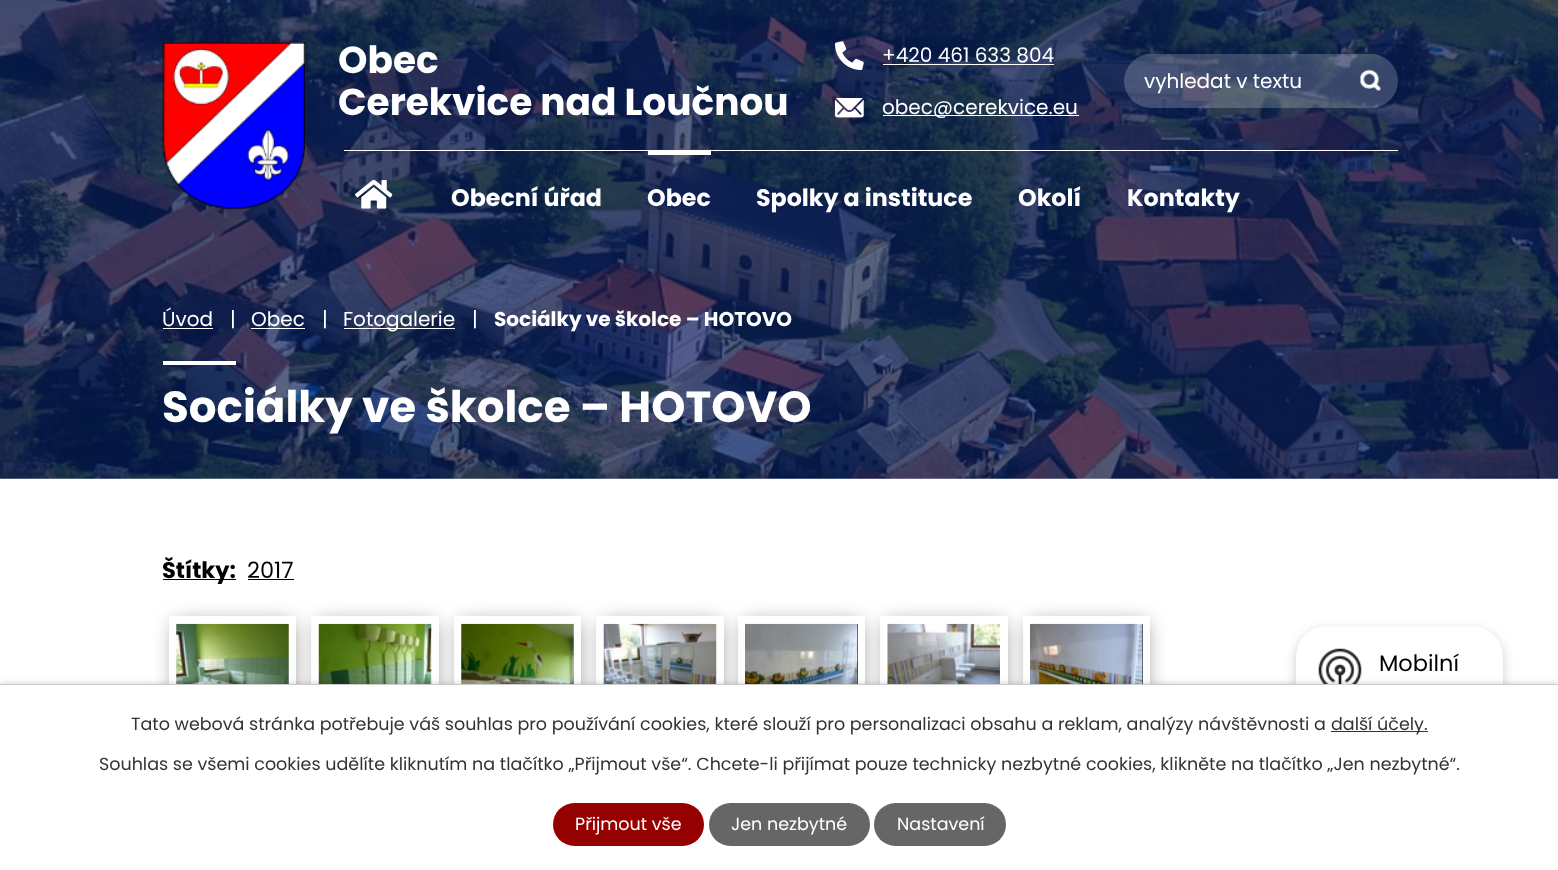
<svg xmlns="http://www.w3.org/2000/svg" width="1558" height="870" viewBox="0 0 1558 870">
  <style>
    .t1 { font: bold 37.5px Poppins; fill: #fff; }
    .t2 { font: 20px Poppins; fill: #fff; }
    .t3 { font: bold 23.75px Poppins; fill: #fff; }
    .t4 { font: bold 20px Poppins; fill: #fff; }
    .t5 { font: bold 43.6px Poppins; fill: #fff; }
    .t6 { font: bold 22.5px Poppins; fill: #000; }
    .t7 { font: 22.5px Poppins; fill: #000; }
    .t8 { font: 17.5px Poppins; fill: #333; }
    .t9 { font: 17.5px Poppins; fill: #fff; }
  </style>
  <defs>
    <clipPath id="clip1"><path d="M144 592H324V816H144ZM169 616H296V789H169Z" clip-rule="evenodd"/></clipPath>
    <clipPath id="clip2"><path d="M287 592H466V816H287ZM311 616H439V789H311Z" clip-rule="evenodd"/></clipPath>
    <clipPath id="clip3"><path d="M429 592H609V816H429ZM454 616H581V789H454Z" clip-rule="evenodd"/></clipPath>
    <clipPath id="clip4"><path d="M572 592H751V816H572ZM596 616H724V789H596Z" clip-rule="evenodd"/></clipPath>
    <clipPath id="clip5"><path d="M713 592H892V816H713ZM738 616H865V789H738Z" clip-rule="evenodd"/></clipPath>
    <clipPath id="clip6"><path d="M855 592H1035V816H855ZM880 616H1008V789H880Z" clip-rule="evenodd"/></clipPath>
    <clipPath id="clip7"><path d="M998 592H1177V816H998ZM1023 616H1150V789H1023Z" clip-rule="evenodd"/></clipPath>
  </defs>
  <rect width="100%" height="100%" fill="#fff"/>
  <image x="0" y="0" width="1558" height="479" href="images/6.png"/>
  <image x="162" y="42" width="143" height="167" href="images/1.png"/>
  <text x="338" y="73" class="t1">Obec</text>
  <text x="338" y="115" class="t1">Cerekvice nad Loučnou</text>
  <image x="835" y="41" width="29" height="29" href="images/2.png"/>
  <text x="882" y="62" class="t2">+420 461 633 804</text>
  <rect x="883" y="64" width="171" height="1" fill="#fff"/>
  <image x="835" y="98" width="29" height="20" href="images/3.png"/>
  <rect x="883" y="115" width="196" height="1" fill="#fff"/>
  <text x="882" y="114" class="t2">obec@cerekvice.eu</text>
  <rect x="1124" y="54" width="274" height="54" rx="27" fill="#ffffff33"/>
  <text x="1144" y="88" class="t2">vyhledat v textu</text>
  <image x="1360" y="69" width="21" height="22" href="images/4.png"/>
  <rect x="344" y="150" width="1054" height="1" fill="#fff"/>
  <image x="355" y="180" width="38" height="29" href="images/5.png"/>
  <text x="451" y="206" class="t3">Obecní úřad</text>
  <rect x="648" y="151" width="63" height="4" fill="#fff"/>
  <text x="647" y="206" class="t3">Obec</text>
  <text x="756" y="206" class="t3">Spolky a instituce</text>
  <text x="1018" y="206" class="t3">Okolí</text>
  <text x="1127" y="206" class="t3">Kontakty</text>
  <text x="162" y="326" class="t2">Úvod</text>
  <rect x="163" y="328" width="50" height="1" fill="#fff"/>
  <text x="230" y="326" class="t2">|</text>
  <text x="251" y="326" class="t2">Obec</text>
  <rect x="251" y="328" width="54" height="1" fill="#fff"/>
  <text x="322" y="326" class="t2">|</text>
  <rect x="344" y="328" width="111" height="1" fill="#fff"/>
  <text x="343" y="326" class="t2">Fotogalerie</text>
  <text x="472" y="326" class="t2">|</text>
  <text x="494" y="326" class="t4">Sociálky ve školce – HOTOVO</text>
  <rect x="163" y="361" width="73" height="4" fill="#fff"/>
  <text x="162" y="422" class="t5">Sociálky ve školce – HOTOVO</text>
  <rect x="163" y="579" width="73" height="1" fill="#000"/>
  <text x="162" y="578" class="t6">Štítky:</text>
  <text x="247" y="578" class="t7">2017</text>
  <rect x="248" y="579" width="46" height="1" fill="#000"/>
  <g clip-path="url(#clip1)">
    <rect x="175" y="623" width="118" height="162" fill="#888" filter="blur(10px)"/>
  </g>
  <g clip-path="url(#clip2)">
    <rect x="318" y="623" width="117" height="162" fill="#888" filter="blur(10px)"/>
  </g>
  <image x="176" y="623" width="113" height="61" href="images/7.png"/>
  <g clip-path="url(#clip3)">
    <rect x="460" y="623" width="118" height="162" fill="#888" filter="blur(10px)"/>
  </g>
  <image x="318" y="623" width="114" height="61" href="images/8.png"/>
  <g clip-path="url(#clip4)">
    <rect x="603" y="623" width="117" height="162" fill="#888" filter="blur(10px)"/>
  </g>
  <image x="461" y="623" width="113" height="61" href="images/9.png"/>
  <g clip-path="url(#clip5)">
    <rect x="744" y="623" width="117" height="162" fill="#888" filter="blur(10px)"/>
  </g>
  <image x="603" y="623" width="114" height="61" href="images/10.png"/>
  <rect x="857" y="624" width="1" height="60" fill="#000"/>
  <g clip-path="url(#clip6)">
    <rect x="886" y="623" width="118" height="162" fill="#888" filter="blur(10px)"/>
  </g>
  <image x="745" y="623" width="113" height="61" href="images/11.png"/>
  <g clip-path="url(#clip7)">
    <rect x="1029" y="623" width="117" height="162" fill="#888" filter="blur(10px)"/>
  </g>
  <image x="887" y="623" width="113" height="61" href="images/12.png"/>
  <rect x="1142" y="624" width="1" height="60" fill="#000"/>
  <image x="1030" y="623" width="113" height="61" href="images/13.png"/>
  <rect x="1296" y="630" width="207" height="188" rx="31" fill="#00000033" filter="blur(6px)"/>
  <rect x="1296" y="626" width="207" height="188" rx="31" fill="#fff"/>
  <image x="1318" y="648" width="44" height="36" href="images/14.png"/>
  <text x="1379" y="671" class="t7">Mobilní</text>
  <rect x="0" y="684" width="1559" height="186" fill="#00000033" filter="blur(3px)"/>
  <rect x="0" y="685" width="1558" height="185" fill="#fff"/>
  <rect x="0" y="684" width="1558" height="1" fill="#ccc"/>
  <text x="131" y="730" class="t8">Tato webová stránka potřebuje váš souhlas pro používání cookies, které slouží pro personalizaci obsahu a reklam, analýzy návštěvnosti a</text>
  <rect x="1331" y="731" width="97" height="1" fill="#333"/>
  <text x="1331" y="730" class="t8">další účely.</text>
  <text x="99" y="770" class="t8">Souhlas se všemi cookies udělíte kliknutím na tlačítko „Přijmout vše“. Chcete-li přijímat pouze technicky nezbytné cookies, klikněte na tlačítko „Jen nezbytné“.</text>
  <rect x="553" y="803" width="151" height="43" rx="21.5" fill="#950000"/>
  <text x="575" y="830" class="t9">Přijmout vše</text>
  <rect x="709" y="803" width="161" height="43" rx="21.5" fill="#666"/>
  <text x="731" y="830" class="t9">Jen nezbytné</text>
  <rect x="874" y="803" width="132" height="43" rx="21.5" fill="#666"/>
  <text x="897" y="830" class="t9">Nastavení</text>
</svg>
